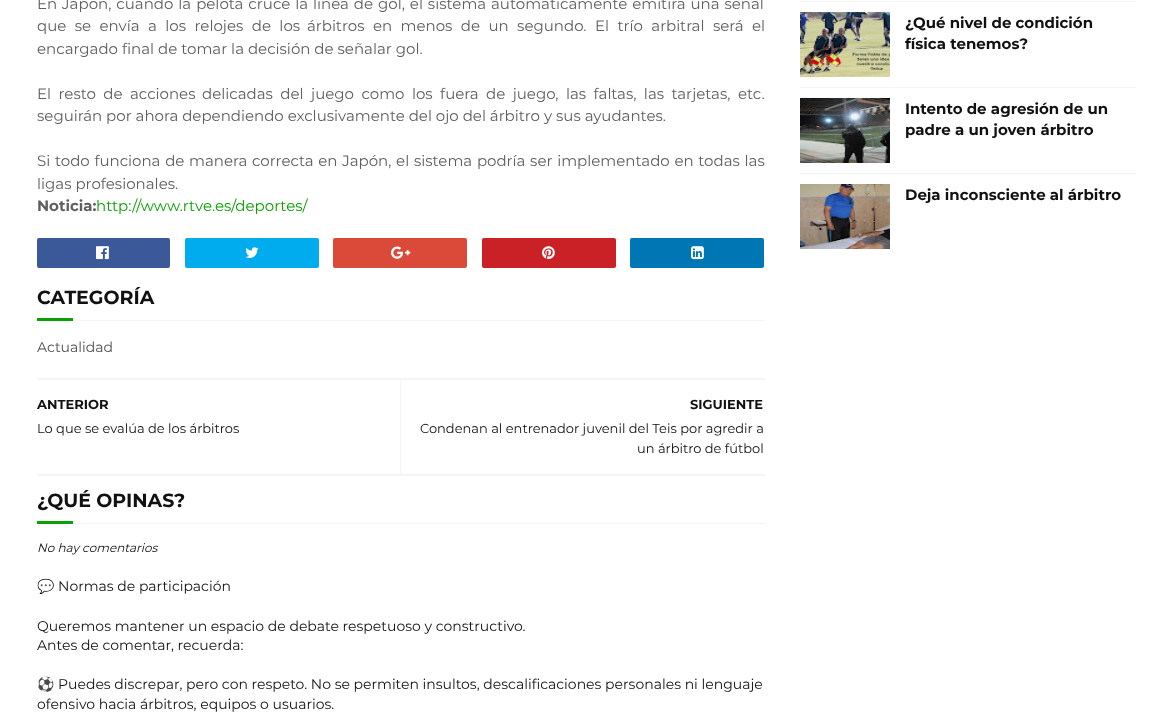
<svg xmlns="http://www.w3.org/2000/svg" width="1172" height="720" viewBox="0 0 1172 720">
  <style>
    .t1 { font: 100 15px Montserrat; fill: #5e5e5e; }
    .t2 { font: bold 15px Montserrat; fill: #5e5e5e; }
    .t3 { font: 100 15px Montserrat; fill: #08a100; }
    .t4 { font: bold 19px Montserrat; fill: #111; }
    .t5 { font: 100 14px Montserrat; fill: #4f4f4f; }
    .t6 { font: bold 13px Montserrat; fill: #111; }
    .t7 { font: 100 13px Montserrat; fill: #111; }
    .t8 { font: italic 100 12px Montserrat; fill: #111; }
    .t9 { font: 14px Noto Color Emoji; fill: #111; }
    .t10 { font: 100 14px Montserrat; fill: #111; }
    .t11 { font: bold 15px Montserrat; fill: #111; }
  </style>
  <defs>
    <clipPath id="clip1"><rect x="37" y="0" width="728" height="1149"/></clipPath>
  </defs>
  <rect width="100%" height="100%" fill="#fff"/>
  <text x="37" y="9" word-spacing="1" class="t1">En Japón, cuando la pelota cruce la línea de gol, el sistema</text>
  <text x="491" y="9" word-spacing="1" class="t1">automáticamente emitirá una señal</text>
  <text x="37" y="31" word-spacing="4.5" class="t1">que se envía a los relojes de los</text>
  <text x="307" y="31" word-spacing="4.5" class="t1">árbitros en menos de un segundo. El trío arbitral será el</text>
  <text x="37" y="54" class="t1">encargado final de tomar la decisión de señalar gol.</text>
  <text x="37" y="99" word-spacing="3.5" class="t1">El resto de acciones</text>
  <text x="202" y="99" word-spacing="3.5" class="t1">delicadas del juego como los fuera de juego, las faltas, las tarjetas,</text>
  <text x="738" y="99" class="t1">etc.</text>
  <text x="37" y="121" class="t1">seguirán por ahora dependiendo exclusivamente del ojo del árbitro y sus ayudantes.</text>
  <text x="37" y="166" word-spacing="0.75" class="t1">Si todo funciona de manera correcta en Japón, el sistema podría ser implementado en todas las</text>
  <text x="37" y="189" class="t1">ligas profesionales.</text>
  <text x="37" y="211" class="t2">Noticia:</text>
  <text x="96" y="211" class="t3">http://www.rtve.es/deportes/</text>
  <rect x="37" y="238" width="133" height="30" rx="2" fill="#3b5998"/>
  <image x="96" y="246" width="13" height="14" href="images/1.png"/>
  <rect x="185" y="238" width="134" height="30" rx="2" fill="#00acee"/>
  <image x="245" y="247" width="14" height="11" href="images/2.png"/>
  <rect x="333" y="238" width="134" height="30" rx="2" fill="#db4a39"/>
  <image x="391" y="246" width="20" height="13" href="images/3.png"/>
  <rect x="482" y="238" width="134" height="30" rx="2" fill="#ca2127"/>
  <image x="542" y="246" width="13" height="14" href="images/4.png"/>
  <rect x="630" y="238" width="134" height="30" rx="2" fill="#0077b5"/>
  <image x="691" y="246" width="13" height="14" href="images/5.png"/>
  <rect x="73" y="320" width="692" height="1" fill="#f5f5f5"/>
  <text x="37" y="304" class="t4">CATEGORÍA</text>
  <rect x="37" y="318" width="36" height="3" fill="#08a100"/>
  <text x="37" y="352" class="t5">Actualidad</text>
  <rect x="37" y="378" width="728" height="2" fill="#f5f5f5"/>
  <rect x="37" y="474" width="728" height="2" fill="#f5f5f5"/>
  <text x="37" y="409" class="t6">ANTERIOR</text>
  <text x="37" y="433" class="t7">Lo que se evalúa de los árbitros</text>
  <rect x="400" y="380" width="1" height="94" fill="#f5f5f5"/>
  <text x="690" y="409" class="t6">SIGUIENTE</text>
  <text x="420" y="433" class="t7">Condenan al entrenador juvenil del Teis por agredir a</text>
  <text x="637" y="453" class="t7">un árbitro de fútbol</text>
  <rect x="73" y="523" width="692" height="1" fill="#f5f5f5"/>
  <text x="37" y="507" class="t4">¿QUÉ OPINAS?</text>
  <rect x="37" y="521" width="36" height="3" fill="#08a100"/>
  <text x="37" y="552" class="t8">No hay comentarios</text>
  <g clip-path="url(#clip1)">
    <text x="37" y="591" class="t9">💬</text>
  </g>
  <text x="58" y="591" class="t10">Normas de participación</text>
  <text x="37" y="631" class="t10">Queremos mantener un espacio de debate respetuoso y constructivo.</text>
  <text x="37" y="650" class="t10">Antes de comentar, recuerda:</text>
  <g clip-path="url(#clip1)">
    <text x="37" y="689" class="t9">⚽</text>
  </g>
  <text x="58" y="689" class="t10">Puedes discrepar, pero con respeto. No se permiten insultos, descalificaciones personales ni lenguaje</text>
  <text x="37" y="709" class="t10">ofensivo hacia árbitros, equipos o usuarios.</text>
  <rect x="800" y="1" width="336" height="1" fill="#f5f5f5"/>
  <image x="800" y="12" width="90" height="65" href="images/6.png"/>
  <text x="905" y="28" class="t11">¿Qué nivel de condición</text>
  <text x="905" y="49" class="t11">física tenemos?</text>
  <rect x="800" y="87" width="336" height="1" fill="#f5f5f5"/>
  <image x="800" y="98" width="90" height="65" href="images/7.png"/>
  <text x="905" y="114" class="t11">Intento de agresión de un</text>
  <text x="905" y="135" class="t11">padre a un joven árbitro</text>
  <rect x="800" y="173" width="336" height="1" fill="#f5f5f5"/>
  <image x="800" y="184" width="90" height="65" href="images/8.png"/>
  <text x="905" y="200" class="t11">Deja inconsciente al árbitro</text>
</svg>
